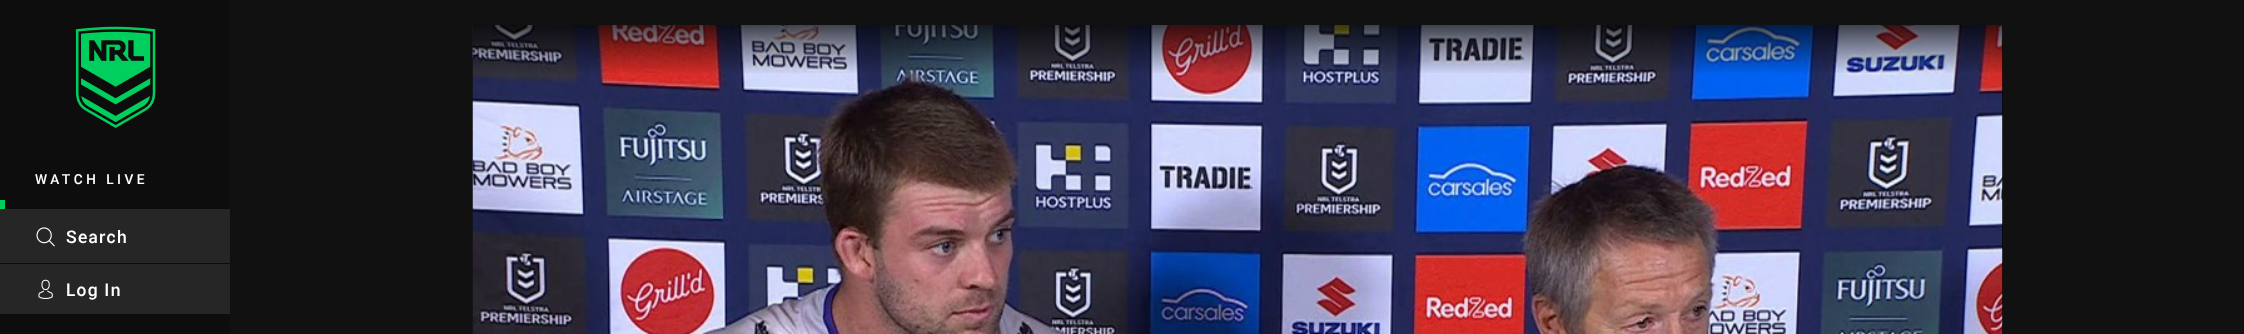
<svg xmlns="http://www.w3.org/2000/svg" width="2244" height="334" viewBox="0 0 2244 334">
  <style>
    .t1 { font: 500 13.75px 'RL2'; letter-spacing: 3.5px; fill: #fff; }
    .t2 { font: 500 17.5px 'RL2'; letter-spacing: 1.25px; fill: #fff; }
  </style>
  <defs>
    <linearGradient id="g1" gradientUnits="userSpaceOnUse" x1="1238" y1="75" x2="1238" y2="25"><stop offset="0" stop-color="#000" stop-opacity="0"/><stop offset="1" stop-color="#000" stop-opacity="0.7"/></linearGradient>
  </defs>
  <rect width="100%" height="100%" fill="#111"/>
  <rect x="0" y="0" width="230" height="334" fill="#0d0d0d"/>
  <image x="75" y="26" width="81" height="102" href="images/1.png"/>
  <text x="35" y="184" class="t1">WATCH LIVE</text>
  <rect x="0" y="200" width="5" height="9" fill="#00cf5d"/>
  <rect x="0" y="209" width="230" height="54" fill="#262626"/>
  <image x="36" y="227" width="19" height="20" href="images/2.png"/>
  <text x="66" y="243" class="t2">Search</text>
  <rect x="0" y="264" width="230" height="50" fill="#262626"/>
  <image x="38" y="279" width="15" height="20" href="images/3.png"/>
  <text x="66" y="296" class="t2">Log In</text>
  <rect x="2002" y="25" width="1" height="309" fill="#000"/>
  <image x="472" y="25" width="1531" height="309" href="images/4.png"/>
  <rect x="473" y="25" width="1530" height="48" fill="url(#g1)"/>
</svg>
